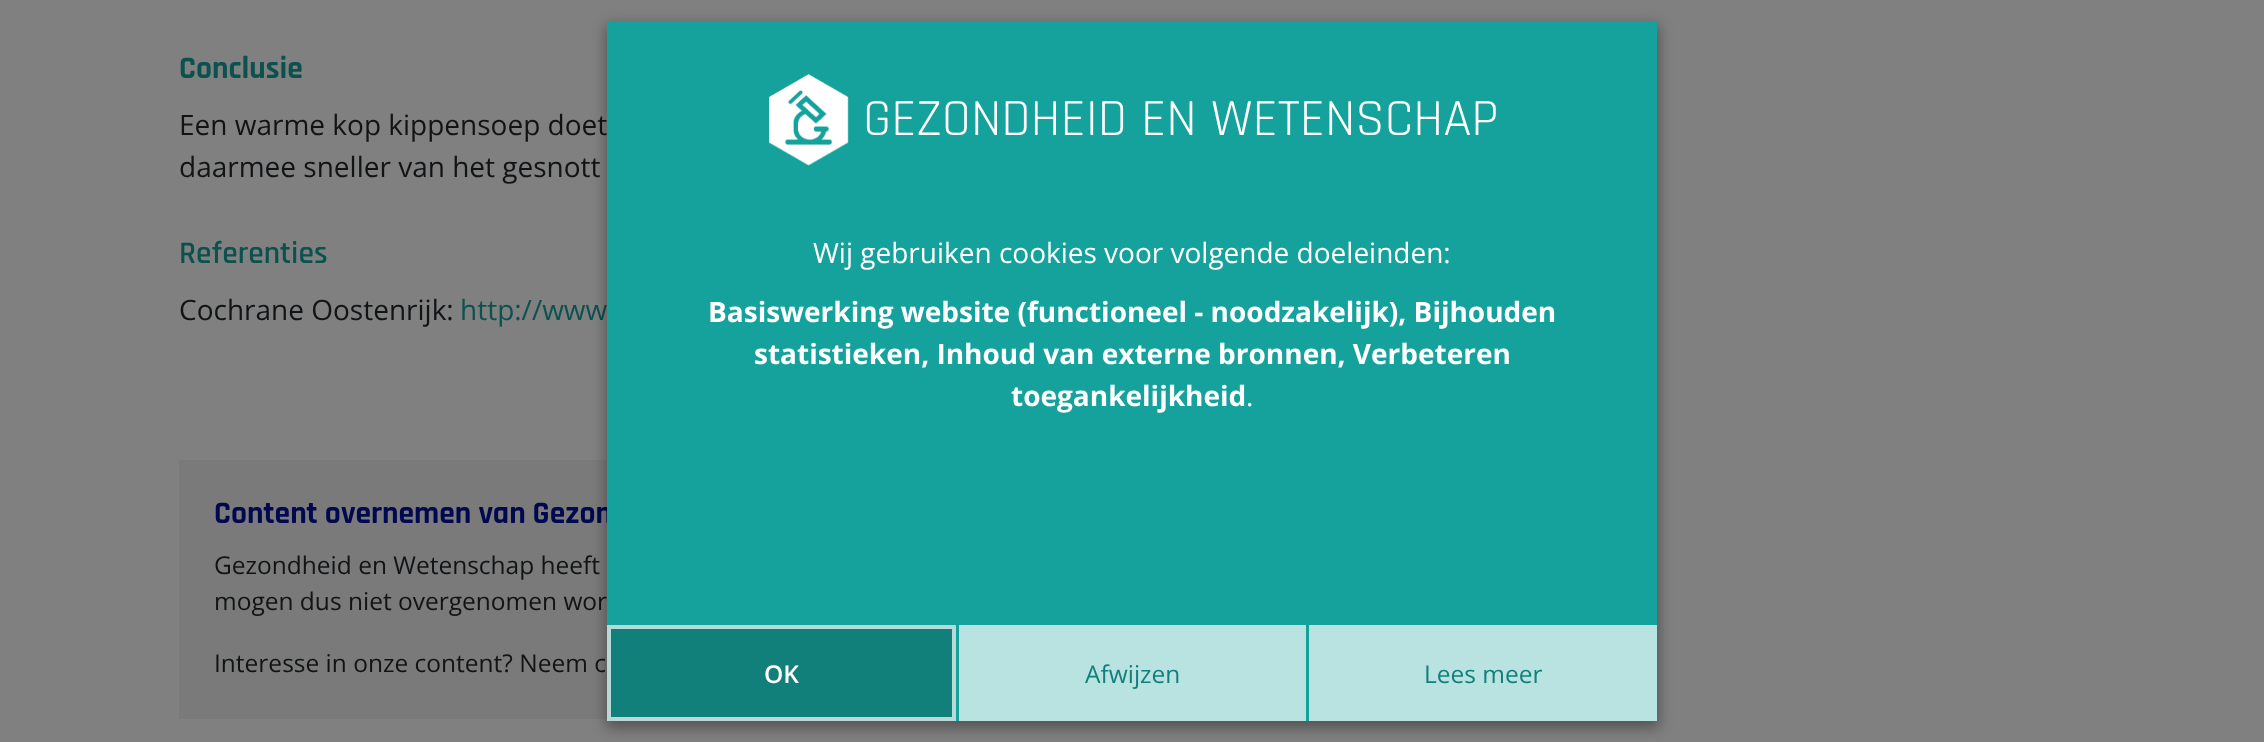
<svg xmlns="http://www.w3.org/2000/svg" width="2264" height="742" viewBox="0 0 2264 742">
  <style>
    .t1 { font: bold 31.5px Rajdhani; fill: #0b514e; }
    .t2 { font: 28px Open Sans; fill: #111315; }
    .t3 { font: 600 31.5px Rajdhani; fill: #0b514e; }
    .t4 { font: 28px Open Sans; fill: #0b514e; }
    .t5 { font: bold 31.5px Rajdhani; fill: #000850; }
    .t6 { font: 24.5px Open Sans; fill: #111315; }
    .t7 { font: 52.5px Rajdhani; fill: #fff; }
    .t8 { font: 28px Open Sans; fill: #fff; }
    .t9 { font: bold 28px Open Sans; fill: #fff; }
    .t10 { font: 600 24.5px Open Sans; fill: #fff; }
    .t11 { font: 24.5px Open Sans; fill: #11807b; }
  </style>
  <rect width="100%" height="100%" fill="#808080"/>
  <text x="179" y="78" class="t1">Conclusie</text>
  <text x="179" y="135" class="t2">Een warme kop kippensoep doet</text>
  <text x="179" y="177" class="t2">daarmee sneller van het gesnott</text>
  <text x="179" y="263" class="t3">Referenties</text>
  <text x="179" y="320" class="t2">Cochrane Oostenrijk:</text>
  <text x="460" y="320" class="t4">http://www</text>
  <rect x="179" y="460" width="428" height="259" fill="#7a7a7a"/>
  <text x="214" y="523" class="t5">Content overnemen van Gezon</text>
  <text x="214" y="574" class="t6">Gezondheid en Wetenschap heeft</text>
  <text x="214" y="610" class="t6">mogen dus niet overgenomen wor</text>
  <text x="214" y="672" class="t6">Interesse in onze content? Neem c</text>
  <rect x="606" y="25" width="1053" height="703" fill="#00000059" filter="blur(7px)"/>
  <rect x="607" y="21" width="1050" height="700" fill="#15a29c"/>
  <image x="769" y="74" width="80" height="92" href="images/1.png"/>
  <text x="863" y="135" class="t7">GEZONDHEID EN WETENSCHAP</text>
  <text x="813" y="263" class="t8">Wij gebruiken cookies voor volgende doeleinden:</text>
  <text x="708" y="322" class="t9">Basiswerking website (functioneel - noodzakelijk), Bijhouden</text>
  <text x="754" y="364" class="t9">statistieken, Inhoud van externe bronnen, Verbeteren</text>
  <text x="1011" y="406" class="t9">toegankelijkheid</text>
  <text x="1246" y="406" class="t8">.</text>
  <rect x="609" y="627" width="345" height="92" fill="#11807b" stroke="#b8d9d7" stroke-width="4"/>
  <text x="764" y="683" class="t10">OK</text>
  <rect x="959" y="625" width="347" height="96" fill="#b9e3e1"/>
  <text x="1085" y="683" class="t11">Afwijzen</text>
  <rect x="1309" y="625" width="348" height="96" fill="#b9e3e1"/>
  <text x="1424" y="683" class="t11">Lees meer</text>
</svg>
